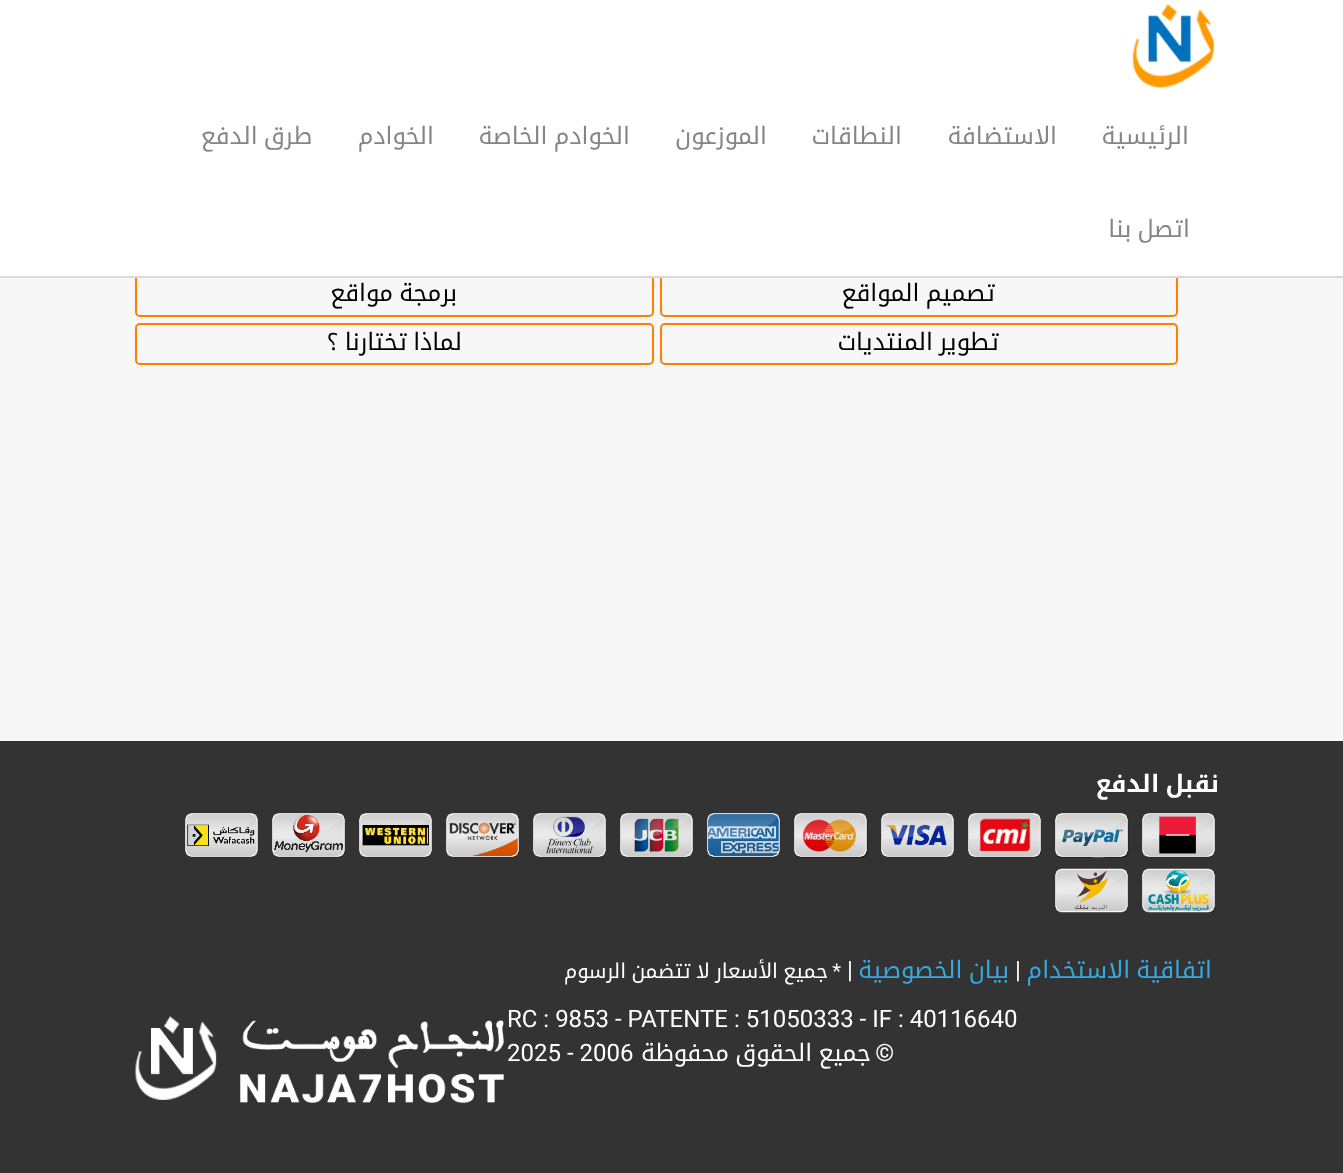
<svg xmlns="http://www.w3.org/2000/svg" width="1343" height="1173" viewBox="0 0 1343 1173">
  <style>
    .t1 { font: 24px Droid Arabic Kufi; direction: rtl; fill: #858585; }
    .t2 { font: 24px Droid Arabic Kufi; direction: rtl; fill: #000; }
    .t3 { font: bold 24px Droid Arabic Kufi; direction: rtl; fill: #fff; }
    .t4 { font: 24px Droid Arabic Kufi; direction: rtl; fill: #36a9e1; }
    .t5 { font: 24px Roboto; fill: #fff; }
    .t6 { font: 20.4px Droid Arabic Kufi; direction: rtl; fill: #fff; }
    .t7 { font: 20.4px Roboto; direction: rtl; fill: #fff; }
    .t8 { font: 24px Roboto; direction: rtl; fill: #fff; }
    .t9 { font: 24px Droid Arabic Kufi; direction: rtl; fill: #fff; }
  </style>
  <rect width="100%" height="100%" fill="#f7f7f7"/>
  <rect x="661" y="274" width="516" height="42" rx="4" fill="none" stroke="#ff8000" stroke-width="2"/>
  <rect x="136" y="274" width="517" height="42" rx="4" fill="none" stroke="#ff8000" stroke-width="2"/>
  <rect x="0" y="0" width="1343" height="276" fill="#fff"/>
  <rect x="0" y="276" width="1343" height="2" fill="#dadada"/>
  <image x="1132" y="4" width="82" height="84" href="images/1.png"/>
  <text x="1189" y="144" class="t1">الرئيسية</text>
  <text x="1057" y="144" class="t1">الاستضافة</text>
  <text x="902" y="144" class="t1">النطاقات</text>
  <text x="767" y="144" class="t1">الموزعون</text>
  <text x="630" y="144" word-spacing="-2" class="t1">الخوادم الخاصة</text>
  <text x="434" y="144" class="t1">الخوادم</text>
  <text x="312" y="144" word-spacing="-2" class="t1">طرق الدفع</text>
  <text x="1190" y="237" word-spacing="-2" class="t1">اتصل بنا</text>
  <text x="995" y="301" word-spacing="-2" class="t2">تصميم المواقع</text>
  <text x="457" y="301" word-spacing="-2" class="t2">برمجة مواقع</text>
  <rect x="661" y="324" width="516" height="40" rx="4" fill="none" stroke="#ff8000" stroke-width="2"/>
  <text x="999" y="350" word-spacing="-2" class="t2">تطوير المنتديات</text>
  <rect x="136" y="324" width="517" height="40" rx="4" fill="none" stroke="#ff8000" stroke-width="2"/>
  <text x="462" y="350" word-spacing="-2" class="t2">لماذا تختارنا ؟</text>
  <rect x="0" y="741" width="1343" height="432" fill="#333"/>
  <text x="1219" y="792" word-spacing="-2" class="t3">نقبل الدفع</text>
  <image x="1142" y="813" width="73" height="45" href="images/2.png"/>
  <image x="1055" y="813" width="74" height="45" href="images/3.png"/>
  <image x="968" y="813" width="73" height="45" href="images/4.png"/>
  <image x="881" y="813" width="73" height="45" href="images/5.png"/>
  <image x="794" y="813" width="74" height="45" href="images/6.png"/>
  <image x="707" y="813" width="73" height="45" href="images/7.png"/>
  <image x="620" y="813" width="73" height="45" href="images/8.png"/>
  <image x="533" y="813" width="73" height="45" href="images/9.png"/>
  <image x="446" y="813" width="73" height="45" href="images/10.png"/>
  <image x="359" y="813" width="73" height="45" href="images/11.png"/>
  <image x="272" y="813" width="73" height="45" href="images/12.png"/>
  <image x="185" y="813" width="73" height="45" href="images/13.png"/>
  <image x="1142" y="868" width="73" height="45" href="images/14.png"/>
  <image x="1055" y="868" width="73" height="45" href="images/15.png"/>
  <text x="1212" y="978" word-spacing="-2" class="t4">اتفاقية الاستخدام</text>
  <text x="1015" y="978" class="t5">|</text>
  <text x="1009" y="978" word-spacing="-2" class="t4">بيان الخصوصية</text>
  <text x="847" y="978" class="t5">|</text>
  <text x="828" y="978" word-spacing="-1.5" class="t6">جميع الأسعار لا تتضمن الرسوم</text>
  <text x="841" y="978" class="t7">*</text>
  <text x="507" y="1027" class="t5">RC : 9853 - PATENTE : 51050333 - IF : 40116640</text>
  <text x="894" y="1061" class="t8">©</text>
  <text x="871" y="1061" word-spacing="-2" class="t9">جميع الحقوق محفوظة</text>
  <text x="507" y="1061" class="t5">2025 - 2006</text>
  <image x="135" y="1016" width="369" height="88" href="images/16.png"/>
</svg>
